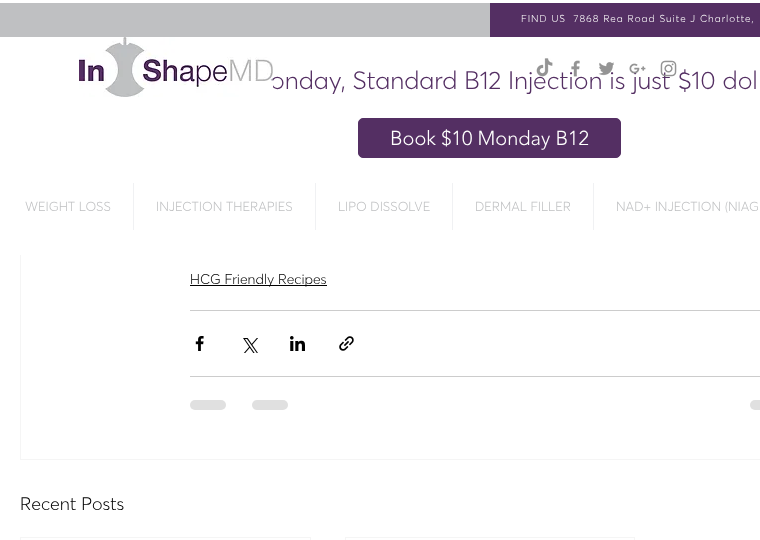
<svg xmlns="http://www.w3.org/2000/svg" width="760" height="540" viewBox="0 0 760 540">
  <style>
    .t1 { font: 300 10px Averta; letter-spacing: 1px; fill: #fffffe; }
    .t2 { font: 300 25px Averta; fill: #542f63; }
    .t3 { font: 300 20px 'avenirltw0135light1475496'; fill: #fffffe; }
    .t4 { font: 300 13px Averta; fill: #bfc0c2; }
    .t5 { font: 300 14px Averta; fill: #000; }
    .t6 { font: 300 18px Averta; fill: #000; }
  </style>
  <rect width="100%" height="100%" fill="#fff"/>
  <rect x="20.5" y="-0.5" width="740" height="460" fill="none" stroke="#f5f5f5"/>
  <rect x="20" y="0" width="1" height="255" fill="#fff"/>
  <rect x="0" y="3" width="490" height="34" fill="#bfc0c2"/>
  <rect x="490" y="3" width="270" height="34" fill="#542f63"/>
  <text x="521" y="22" class="t1" xml:space="preserve">FIND US  7868 Rea Road Suite J Charlotte,</text>
  <text x="270" y="89" class="t2">onday, Standard B12 Injection is just $10 dol</text>
  <rect x="358.5" y="118.5" width="262" height="39" rx="4.5" fill="#542f63" stroke="#542f63"/>
  <text x="390" y="145" class="t3">Book $10 Monday B12</text>
  <text x="25" y="211" class="t4">WEIGHT LOSS</text>
  <rect x="133" y="183" width="1" height="47" fill="#f0f1f3"/>
  <text x="156" y="211" class="t4">INJECTION THERAPIES</text>
  <rect x="315" y="183" width="1" height="47" fill="#f0f1f3"/>
  <text x="338" y="211" class="t4">LIPO DISSOLVE</text>
  <rect x="452" y="183" width="1" height="47" fill="#f0f1f3"/>
  <text x="475" y="211" class="t4">DERMAL FILLER</text>
  <rect x="593" y="183" width="1" height="47" fill="#f0f1f3"/>
  <text x="616" y="211" class="t4">NAD+ INJECTION (NIAG</text>
  <image x="79" y="37" width="194" height="60" href="images/1.png"/>
  <image x="536" y="58" width="17" height="19" href="images/2.png"/>
  <image x="571" y="60" width="9" height="17" href="images/3.png"/>
  <image x="598" y="62" width="16" height="14" href="images/4.png"/>
  <image x="629" y="63" width="17" height="11" href="images/5.png"/>
  <image x="660" y="60" width="17" height="17" href="images/6.png"/>
  <rect x="190" y="285" width="137" height="1" fill="#000"/>
  <text x="190" y="284" class="t5">HCG Friendly Recipes</text>
  <rect x="190" y="310" width="570" height="1" fill="#ccc"/>
  <image x="195" y="336" width="9" height="15" href="images/7.png"/>
  <image x="243" y="338" width="15" height="15" href="images/8.png"/>
  <image x="290" y="336" width="15" height="15" href="images/9.png"/>
  <image x="339" y="336" width="15" height="15" href="images/10.png"/>
  <rect x="190" y="376" width="570" height="1" fill="#ccc"/>
  <rect x="190" y="400" width="36" height="10" rx="5" fill="#e0e0e0"/>
  <rect x="252" y="400" width="36" height="10" rx="5" fill="#e0e0e0"/>
  <rect x="750" y="400" width="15" height="10" rx="5" fill="#e0e0e0"/>
  <text x="20" y="510" class="t6">Recent Posts</text>
  <rect x="20.5" y="537.5" width="290" height="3" fill="none" stroke="#f5f5f5"/>
  <rect x="345.5" y="537.5" width="289" height="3" fill="none" stroke="#f5f5f5"/>
</svg>
